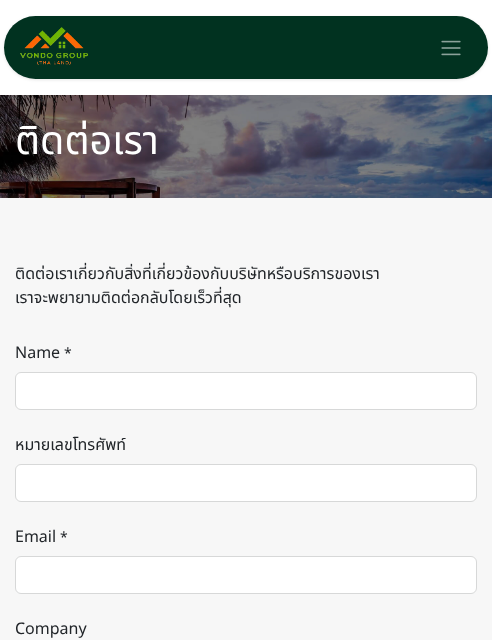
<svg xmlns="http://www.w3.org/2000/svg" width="492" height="640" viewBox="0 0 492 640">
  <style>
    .t1 { font: 39.5px Noto Sans Thai; fill: #fff; }
    .t2 { font: 16px Noto Sans Thai; fill: #212529; }
    .t3 { font: 14px Noto Sans Thai; fill: #212529; }
  </style>
  <rect width="100%" height="100%" fill="#fff"/>
  <rect x="4" y="17" width="484" height="63" rx="31.5" fill="#0000001a" filter="blur(1.5px)"/>
  <rect x="4" y="16" width="484" height="63" rx="31.5" fill="#013220"/>
  <image x="20" y="27" width="68" height="38" href="images/1.png"/>
  <image x="441" y="40" width="20" height="16" href="images/2.png"/>
  <image x="0" y="95" width="492" height="103" href="images/3.png"/>
  <text x="15" y="154" class="t1">ติดต่อเรา</text>
  <rect x="0" y="198" width="492" height="442" fill="#f7f7f7"/>
  <text x="15" y="279" class="t2">ติดต่อเราเกี่ยวกับสิ่งที่เกี่ยวข้องกับบริษัทหรือบริการของเรา</text>
  <text x="15" y="303" class="t2">เราจะพยายามติดต่อกลับโดยเร็วที่สุด</text>
  <text x="15" y="358" class="t2">Name</text>
  <text x="64" y="358" class="t3">*</text>
  <rect x="15.5" y="372.5" width="461" height="37" rx="5.5" fill="#fff" stroke="#d7d8d8"/>
  <text x="15" y="450" class="t2">หมายเลขโทรศัพท์</text>
  <rect x="15.5" y="464.5" width="461" height="37" rx="5.5" fill="#fff" stroke="#d7d8d8"/>
  <text x="15" y="542" class="t2">Email</text>
  <text x="60" y="542" class="t3">*</text>
  <rect x="15.5" y="556.5" width="461" height="37" rx="5.5" fill="#fff" stroke="#d7d8d8"/>
  <text x="15" y="634" class="t2">Company</text>
</svg>
